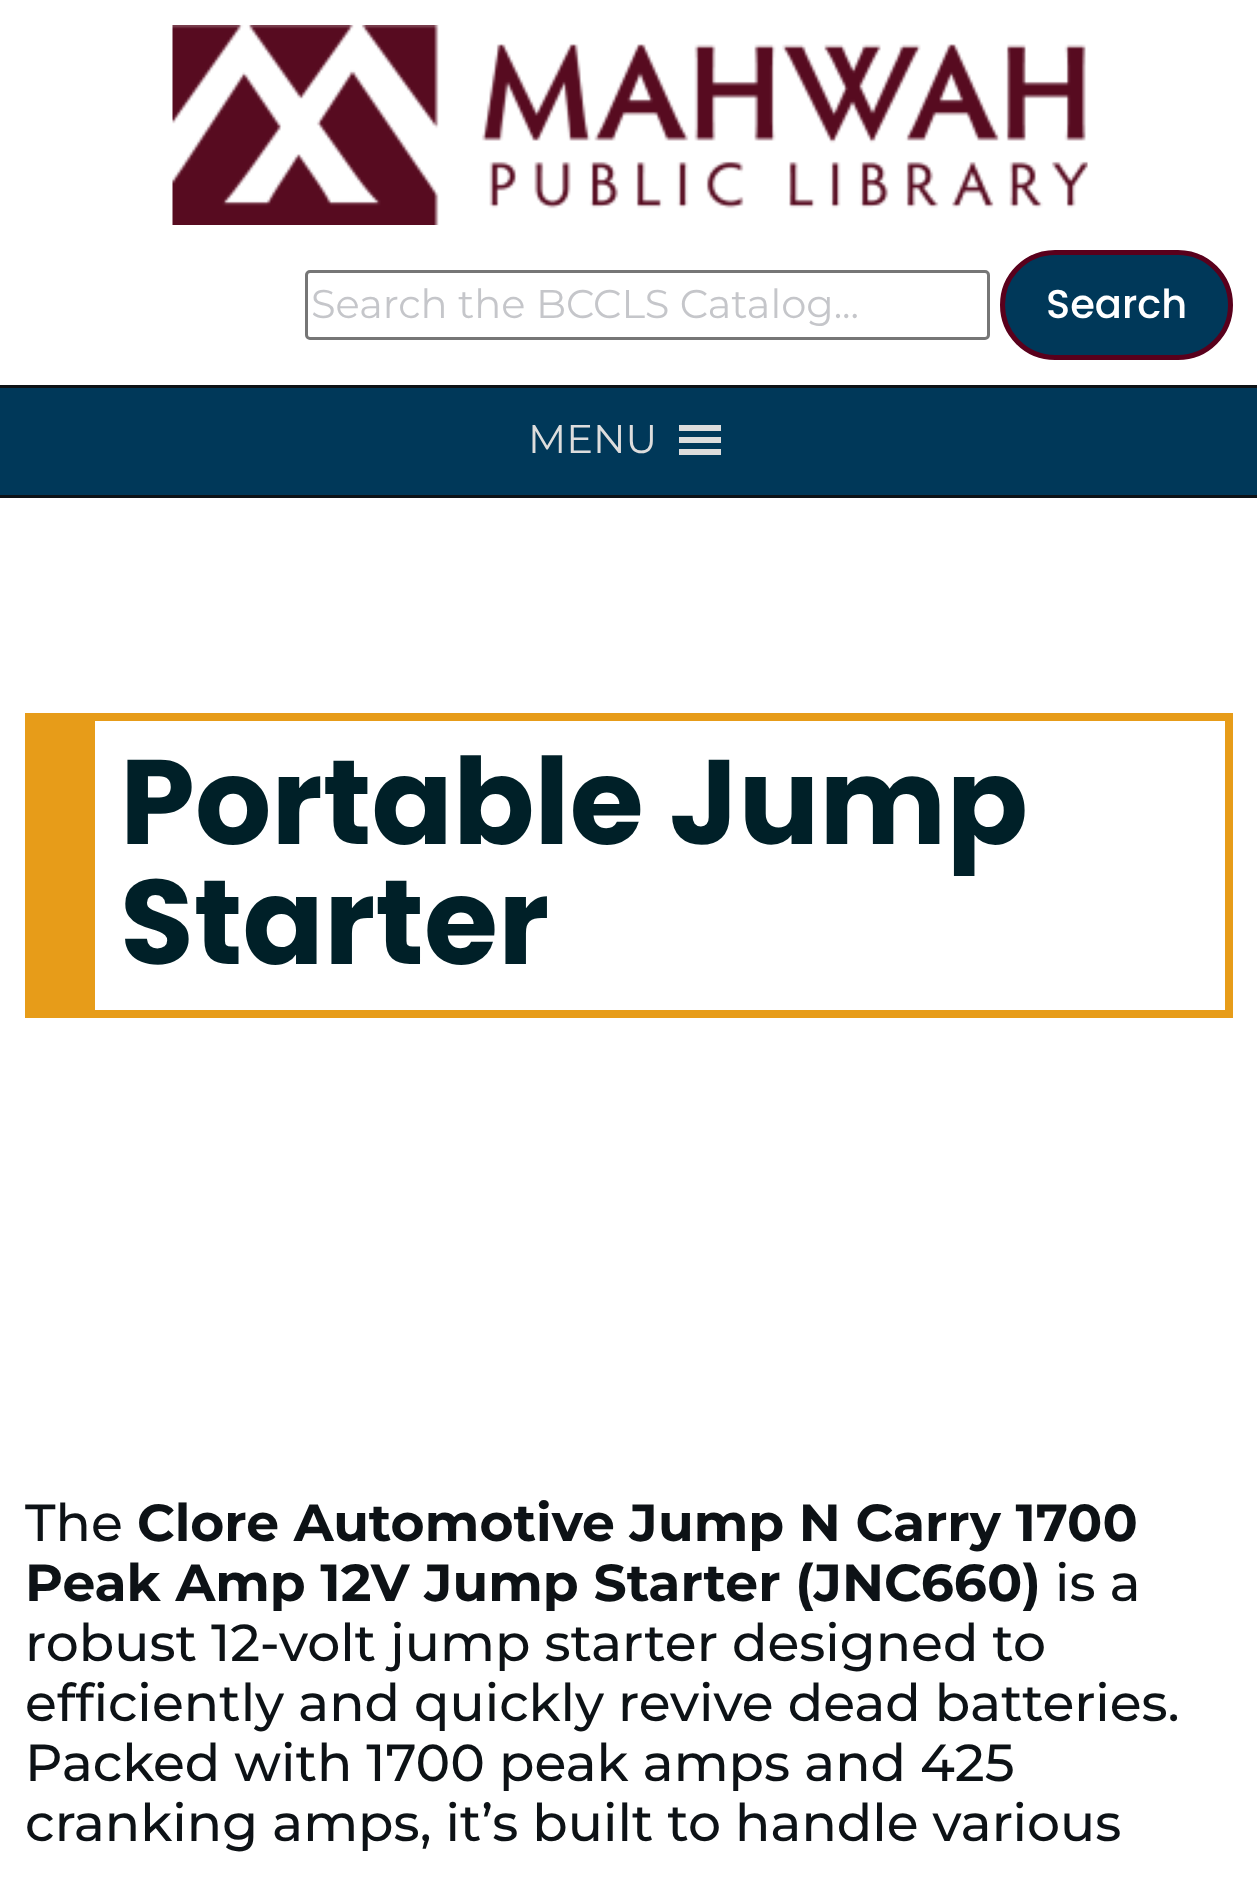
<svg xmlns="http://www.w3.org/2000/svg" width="1257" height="1888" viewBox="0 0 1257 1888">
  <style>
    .t1 { font: 40px Montserrat; fill: #c5c6ca; }
    .t2 { font: 500 40px Poppins; fill: #fff; }
    .t3 { font: 40px Montserrat; fill: #ddd; }
    .t4 { font: bold 120px Poppins; fill: #002028; }
    .t5 { font: 500 52px Montserrat; fill: #0d1216; }
    .t6 { font: bold 52px Montserrat; fill: #0d1216; }
  </style>
  <rect width="100%" height="100%" fill="#fff"/>
  <image x="172" y="25" width="916" height="200" href="images/1.png"/>
  <rect x="306.5" y="271.5" width="682" height="67" rx="3.5" fill="none" stroke="#767676" stroke-width="3"/>
  <text x="311" y="318" class="t1">Search the BCCLS Catalog...</text>
  <rect x="1002.5" y="252.5" width="228" height="105" rx="52.5" fill="#003859" stroke="#59001c" stroke-width="5"/>
  <text x="1046" y="318" class="t2">Search</text>
  <rect x="0" y="388" width="1257" height="107" fill="#003859"/>
  <rect x="0" y="385" width="1257" height="3" fill="#0d1216"/>
  <rect x="0" y="495" width="1257" height="3" fill="#0d1216"/>
  <text x="528" y="453" class="t3">MENU</text>
  <path d="M679 455H721V449H679ZM679 425V431H721V425ZM679 443H721V437H679Z" fill="#ddd"/>
  <rect x="95" y="713" width="1138" height="8" fill="#e79c19"/>
  <rect x="1225" y="713" width="8" height="305" fill="#e79c19"/>
  <rect x="95" y="1010" width="1138" height="8" fill="#e79c19"/>
  <rect x="25" y="713" width="70" height="305" fill="#e79c19"/>
  <text x="120" y="844" class="t4">Portable Jump</text>
  <text x="120" y="964" class="t4">Starter</text>
  <text x="25" y="1541" class="t5">The</text>
  <text x="137" y="1541" class="t6">Clore Automotive Jump N Carry 1700</text>
  <text x="25" y="1601" class="t6">Peak Amp 12V Jump Starter (JNC660)</text>
  <text x="1055" y="1601" class="t5">is a</text>
  <text x="25" y="1661" class="t5">robust 12-volt jump starter designed to</text>
  <text x="25" y="1721" class="t5">efficiently and quickly revive dead batteries.</text>
  <text x="25" y="1781" class="t5">Packed with 1700 peak amps and 425</text>
  <text x="25" y="1841" class="t5">cranking amps, it’s built to handle various</text>
</svg>
